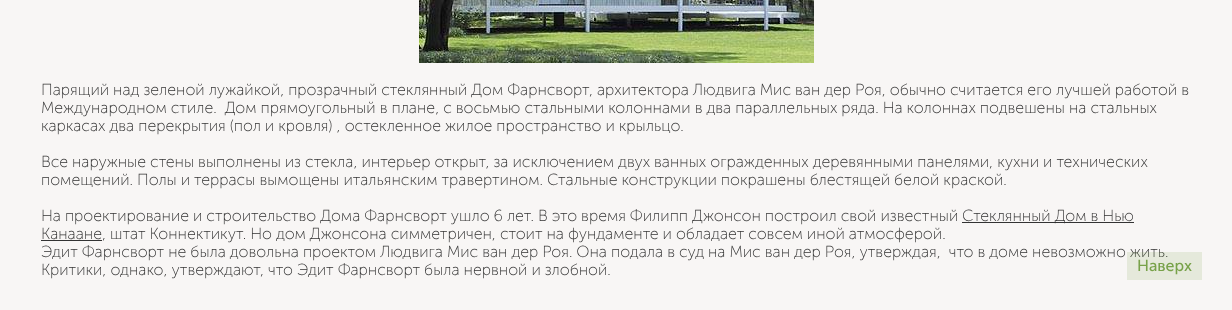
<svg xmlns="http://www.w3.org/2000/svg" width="1232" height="310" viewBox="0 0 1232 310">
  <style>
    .t1 { font: 100 16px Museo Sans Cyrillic; fill: #333; }
    .t2 { font: 500 16px Museo Sans Cyrillic; fill: #78a24a; }
  </style>
  <rect width="100%" height="100%" fill="#f8f6f5"/>
  <image x="419" y="0" width="395" height="63" href="images/1.png"/>
  <text x="41" y="95" class="t1">Парящий над зеленой лужайкой, прозрачный стеклянный Дом Фарнсворт, архитектора Людвига Мис ван дер Роя, обычно считается его лучшей работой в</text>
  <text x="41" y="113" class="t1" xml:space="preserve">Международном стиле.  Дом прямоугольный в плане, с восьмью стальными колоннами в два параллельных ряда. На колоннах подвешены на стальных</text>
  <text x="41" y="131" class="t1">каркасах два перекрытия (пол и кровля) , остекленное жилое пространство и крыльцо.</text>
  <text x="41" y="167" class="t1">Все наружные стены выполнены из стекла, интерьер открыт, за исключением двух ванных огражденных деревянными панелями, кухни и технических</text>
  <text x="41" y="185" class="t1">помещений. Полы и террасы вымощены итальянским травертином. Стальные конструкции покрашены блестящей белой краской.</text>
  <text x="41" y="221" class="t1">На проектирование и строительство Дома Фарнсворт ушло 6 лет. В это время Филипп Джонсон построил свой известный</text>
  <rect x="962" y="222" width="172" height="1" fill="#333"/>
  <text x="962" y="221" class="t1">Стеклянный Дом в Нью</text>
  <rect x="41" y="240" width="61" height="1" fill="#333"/>
  <text x="41" y="239" class="t1">Канаане, штат Коннектикут. Но дом Джонсона симметричен, стоит на фундаменте и обладает совсем иной атмосферой.</text>
  <text x="41" y="257" class="t1" xml:space="preserve">Эдит Фарнсворт не была довольна проектом Людвига Мис ван дер Роя. Она подала в суд на Мис ван дер Роя, утверждая,  что в доме невозможно жить.</text>
  <text x="41" y="275" class="t1">Критики, однако, утверждают, что Эдит Фарнсворт была нервной и злобной.</text>
  <rect x="1127" y="252" width="75" height="28" fill="#78a24a26"/>
  <text x="1137" y="271" class="t2">Наверх</text>
</svg>
